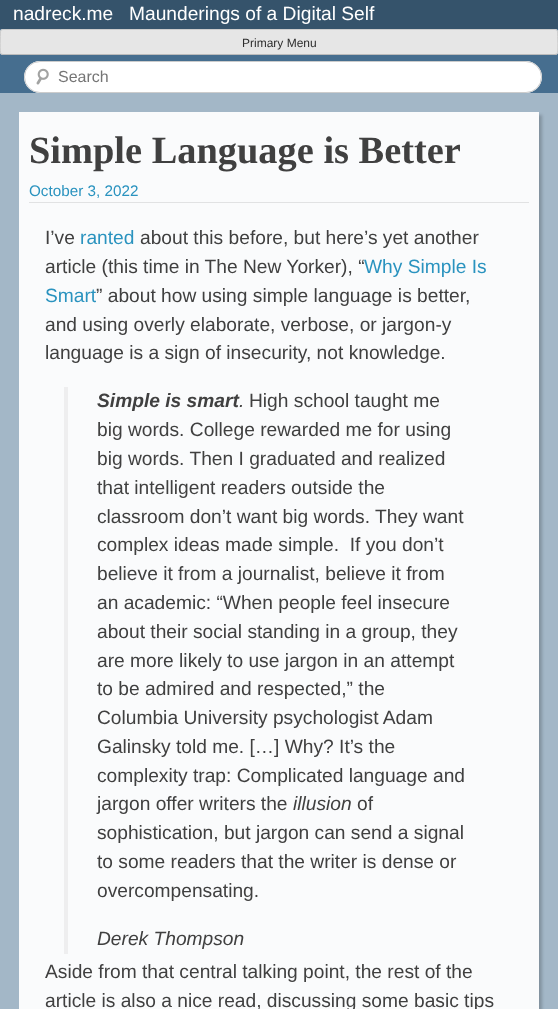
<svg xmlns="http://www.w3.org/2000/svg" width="558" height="1009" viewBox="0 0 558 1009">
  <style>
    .t1 { font: 19.2px Liberation Sans; fill: #fff; }
    .t2 { font: 12px Liberation Sans; fill: #2e2e2e; }
    .t3 { font: 16px Liberation Sans; fill: #757575; }
    .t4 { font: bold 38.4px Liberation Serif; fill: #404040; }
    .t5 { font: 15.25px Liberation Sans; fill: #2a93bf; }
    .t6 { font: 19.2px Liberation Sans; fill: #404040; }
    .t7 { font: 19.2px Liberation Sans; fill: #2a93bf; }
    .t8 { font: italic bold 19.2px Liberation Sans; fill: #404040; }
    .t9 { font: italic 19.2px Liberation Sans; fill: #404040; }
  </style>
  <rect width="100%" height="100%" fill="#466e8f"/>
  <rect x="0" y="0" width="558" height="29" fill="#35536b"/>
  <text x="13" y="20" class="t1">nadreck.me</text>
  <text x="129" y="20" class="t1">Maunderings of a Digital Self</text>
  <rect x="0" y="29" width="558" height="26" rx="3" fill="#e6e6e6"/>
  <path d="M557 54L555 54.5H3L1 54" fill="none" stroke="#bbb"/>
  <path d="M1 54C-.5 52 .5 35.5 .5 32C.5 30.5 1.5 29.5 3 29.5H555C556.5 29.5 557.5 30.5 557.5 32C557.5 35.5 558.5 52 557 54" fill="none" stroke="#ccc"/>
  <text x="242" y="47" class="t2">Primary Menu</text>
  <rect x="24" y="61" width="518" height="32" rx="16" fill="#fff"/>
  <image x="36" y="68" width="13" height="17" href="images/1.png"/>
  <rect x="24.5" y="61.5" width="517" height="31" rx="15.5" fill="none" stroke="#ccc"/>
  <text x="58" y="82" class="t3">Search</text>
  <rect x="0" y="93" width="558" height="916" fill="#a3b7c7"/>
  <rect x="22" y="115" width="520" height="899" fill="#00000033" filter="blur(1.5px)"/>
  <rect x="19" y="112" width="520" height="897" fill="#fafbfc"/>
  <rect x="29" y="202" width="500" height="1" fill="#e1e2e3"/>
  <text x="29" y="163" class="t4">Simple Language is Better</text>
  <text x="29" y="196" class="t5">October 3, 2022</text>
  <text x="45" y="244" class="t6">I’ve</text>
  <text x="80" y="244" class="t7">ranted</text>
  <text x="140" y="244" class="t6">about this before, but here’s yet another</text>
  <text x="45" y="273" class="t6">article (this time in The New Yorker), “</text>
  <text x="364" y="273" class="t7">Why Simple Is</text>
  <text x="45" y="302" class="t7">Smart</text>
  <text x="96" y="302" class="t6">” about how using simple language is better,</text>
  <text x="45" y="331" class="t6">and using overly elaborate, verbose, or jargon-y</text>
  <text x="45" y="359" class="t6">language is a sign of insecurity, not knowledge.</text>
  <rect x="64" y="387" width="4" height="567" fill="#eeeeef"/>
  <text x="97" y="407" class="t8">Simple is smart</text>
  <text x="239" y="407" class="t9">.</text>
  <text x="249" y="407" class="t6">High school taught me</text>
  <text x="97" y="436" class="t6">big words. College rewarded me for using</text>
  <text x="97" y="465" class="t6">big words. Then I graduated and realized</text>
  <text x="97" y="494" class="t6">that intelligent readers outside the</text>
  <text x="97" y="523" class="t6">classroom don’t want big words. They want</text>
  <text x="97" y="551" class="t6" xml:space="preserve">complex ideas made simple.  If you don’t</text>
  <text x="97" y="580" class="t6">believe it from a journalist, believe it from</text>
  <text x="97" y="609" class="t6">an academic: “When people feel insecure</text>
  <text x="97" y="638" class="t6">about their social standing in a group, they</text>
  <text x="97" y="667" class="t6">are more likely to use jargon in an attempt</text>
  <text x="97" y="695" class="t6">to be admired and respected,” the</text>
  <text x="97" y="724" class="t6">Columbia University psychologist Adam</text>
  <text x="97" y="753" class="t6">Galinsky told me. […] Why? It’s the</text>
  <text x="97" y="782" class="t6">complexity trap: Complicated language and</text>
  <text x="97" y="810" class="t6">jargon offer writers the</text>
  <text x="293" y="810" class="t9">illusion</text>
  <text x="357" y="810" class="t6">of</text>
  <text x="97" y="839" class="t6">sophistication, but jargon can send a signal</text>
  <text x="97" y="868" class="t6">to some readers that the writer is dense or</text>
  <text x="97" y="897" class="t6">overcompensating.</text>
  <text x="97" y="945" class="t9">Derek Thompson</text>
  <text x="45" y="978" class="t6">Aside from that central talking point, the rest of the</text>
  <text x="45" y="1007" class="t6">article is also a nice read, discussing some basic tips</text>
</svg>
